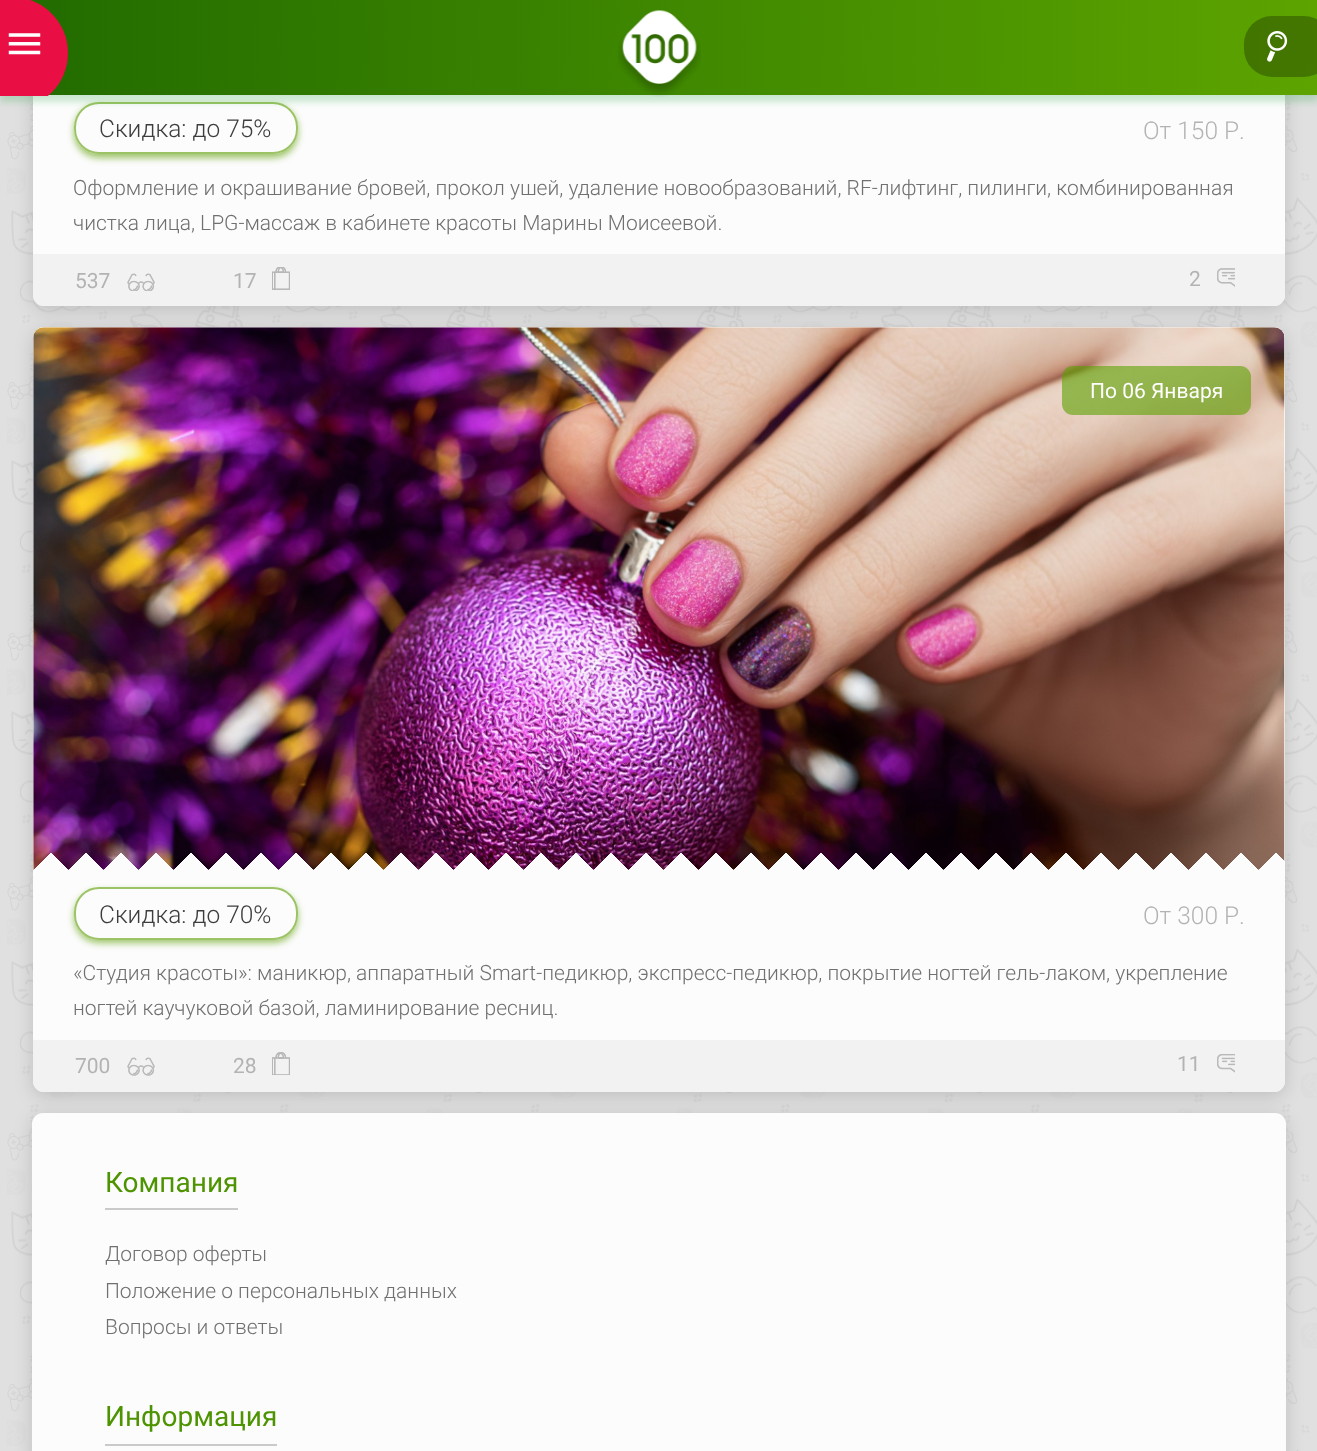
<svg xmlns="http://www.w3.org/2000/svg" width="1317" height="1451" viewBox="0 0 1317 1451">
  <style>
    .t1 { font: 300 24.5px Roboto; fill: #3d3d3d; }
    .t2 { font: 300 24.5px Roboto; fill: #b3b3b3; }
    .t3 { font: 300 21px Roboto; fill: #707070; }
    .t4 { font: 21px Roboto; fill: #b3b3b3; }
    .t5 { font: 21px Roboto; fill: #fff; }
    .t6 { font: 28px Roboto; fill: #4d9400; }
  </style>
  <defs>
    <clipPath id="clip1"><path d="M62 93H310V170H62ZM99 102H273C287 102 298 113 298 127V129C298 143 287 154 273 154H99C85 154 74 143 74 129V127C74 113 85 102 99 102Z" clip-rule="evenodd"/></clipPath>
    <linearGradient id="g1" gradientUnits="userSpaceOnUse" x1="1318" y1="59" x2="-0.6" y2="35"><stop offset="0" stop-color="#5da400"/><stop offset="0.96" stop-color="#236d00"/></linearGradient>
    <clipPath id="clip2"><rect x="0" y="0" width="72" height="96"/></clipPath>
    <clipPath id="clip3"><path d="M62 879H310V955H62ZM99 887H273C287 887 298 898 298 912V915C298 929 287 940 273 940H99C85 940 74 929 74 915V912C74 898 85 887 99 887Z" clip-rule="evenodd"/></clipPath>
  </defs>
  <rect width="100%" height="100%" fill="#e0e0e0"/>
  <image x="7" y="95" width="1310" height="1356" href="images/1.png"/>
  <rect x="33" y="-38" width="1252" height="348" rx="11" fill="#00000026" filter="blur(9px)"/>
  <rect x="33" y="-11" width="1252" height="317" rx="11" fill="#fcfcfc"/>
  <g clip-path="url(#clip1)">
    <rect x="74" y="105" width="224" height="53" rx="25" fill="#5b9e0299" filter="blur(3.5px)"/>
  </g>
  <rect x="75" y="103" width="222" height="50" rx="24" fill="none" stroke="#5b9e0299" stroke-width="2"/>
  <rect x="0" y="7" width="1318" height="95" fill="#009d2233" filter="blur(3.5px)"/>
  <rect x="30" y="0" width="1287" height="95" fill="url(#g1)"/>
  <g clip-path="url(#clip2)">
    <rect x="-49" y="-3" width="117" height="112" rx="56" fill="#e90e43"/>
  </g>
  <image x="8" y="33" width="33" height="22" href="images/2.png"/>
  <image x="618" y="10" width="83" height="87" href="images/3.png"/>
  <rect x="1244" y="16" width="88" height="61" rx="28" fill="#0a12004d"/>
  <image x="1267" y="31" width="21" height="31" href="images/4.png"/>
  <text x="99" y="137" class="t1">Скидка: до 75%</text>
  <text x="1143" y="139" class="t2">От 150 Р.</text>
  <text x="73" y="195" class="t3">Оформление и окрашивание бровей, прокол ушей, удаление новообразований, RF-лифтинг, пилинги, комбинированная</text>
  <text x="73" y="230" class="t3">чистка лица, LPG-массаж в кабинете красоты Марины Моисеевой.</text>
  <path d="M33 254H1285V295C1285 301 1280 306 1274 306H44C38 306 33 301 33 295Z" fill="#f2f2f2"/>
  <text x="75" y="288" class="t4">537</text>
  <image x="127" y="273" width="28" height="18" href="images/5.png"/>
  <text x="233" y="288" class="t4">17</text>
  <image x="272" y="267" width="18" height="23" href="images/6.png"/>
  <text x="1189" y="286" class="t4">2</text>
  <image x="1217" y="268" width="18" height="19" href="images/7.png"/>
  <rect x="33" y="331" width="1252" height="765" rx="11" fill="#00000026" filter="blur(9px)"/>
  <rect x="33" y="327" width="1252" height="765" rx="11" fill="#fcfcfc"/>
  <image x="33" y="327" width="1252" height="543" href="images/8.png"/>
  <rect x="1062" y="366" width="189" height="49" rx="11" fill="#5ca20099"/>
  <text x="1090" y="398" class="t5">По 06 Января</text>
  <image x="51" y="853" width="1234" height="17" href="images/9.png"/>
  <image x="34" y="853" width="1242" height="17" href="images/10.png"/>
  <g clip-path="url(#clip3)">
    <rect x="74" y="891" width="224" height="52" rx="25" fill="#5b9e0299" filter="blur(3.5px)"/>
  </g>
  <rect x="75" y="888" width="222" height="51" rx="24" fill="none" stroke="#5b9e0299" stroke-width="2"/>
  <text x="99" y="923" class="t1">Скидка: до 70%</text>
  <text x="1143" y="924" class="t2">От 300 Р.</text>
  <text x="73" y="980" class="t3">«Студия красоты»: маникюр, аппаратный Smart-педикюр, экспресс-педикюр, покрытие ногтей гель-лаком, укрепление</text>
  <text x="73" y="1015" class="t3">ногтей каучуковой базой, ламинирование ресниц.</text>
  <path d="M33 1040H1285V1081C1285 1087 1280 1092 1274 1092H44C38 1092 33 1087 33 1081Z" fill="#f2f2f2"/>
  <text x="75" y="1073" class="t4">700</text>
  <image x="127" y="1057" width="28" height="19" href="images/11.png"/>
  <text x="233" y="1073" class="t4">28</text>
  <image x="272" y="1052" width="18" height="23" href="images/12.png"/>
  <text x="1177" y="1071" class="t4">11</text>
  <image x="1217" y="1054" width="18" height="19" href="images/13.png"/>
  <rect x="32" y="1117" width="1254" height="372" rx="11" fill="#00000026" filter="blur(9px)"/>
  <rect x="32" y="1113" width="1254" height="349" rx="11" fill="#fcfcfc"/>
  <rect x="105" y="1208" width="133" height="2" fill="#cacaca"/>
  <text x="105" y="1192" class="t6">Компания</text>
  <text x="105" y="1261" class="t3">Договор оферты</text>
  <text x="105" y="1298" class="t3">Положение о персональных данных</text>
  <text x="105" y="1334" class="t3">Вопросы и ответы</text>
  <rect x="105" y="1444" width="172" height="2" fill="#cacaca"/>
  <text x="105" y="1426" class="t6">Информация</text>
</svg>
